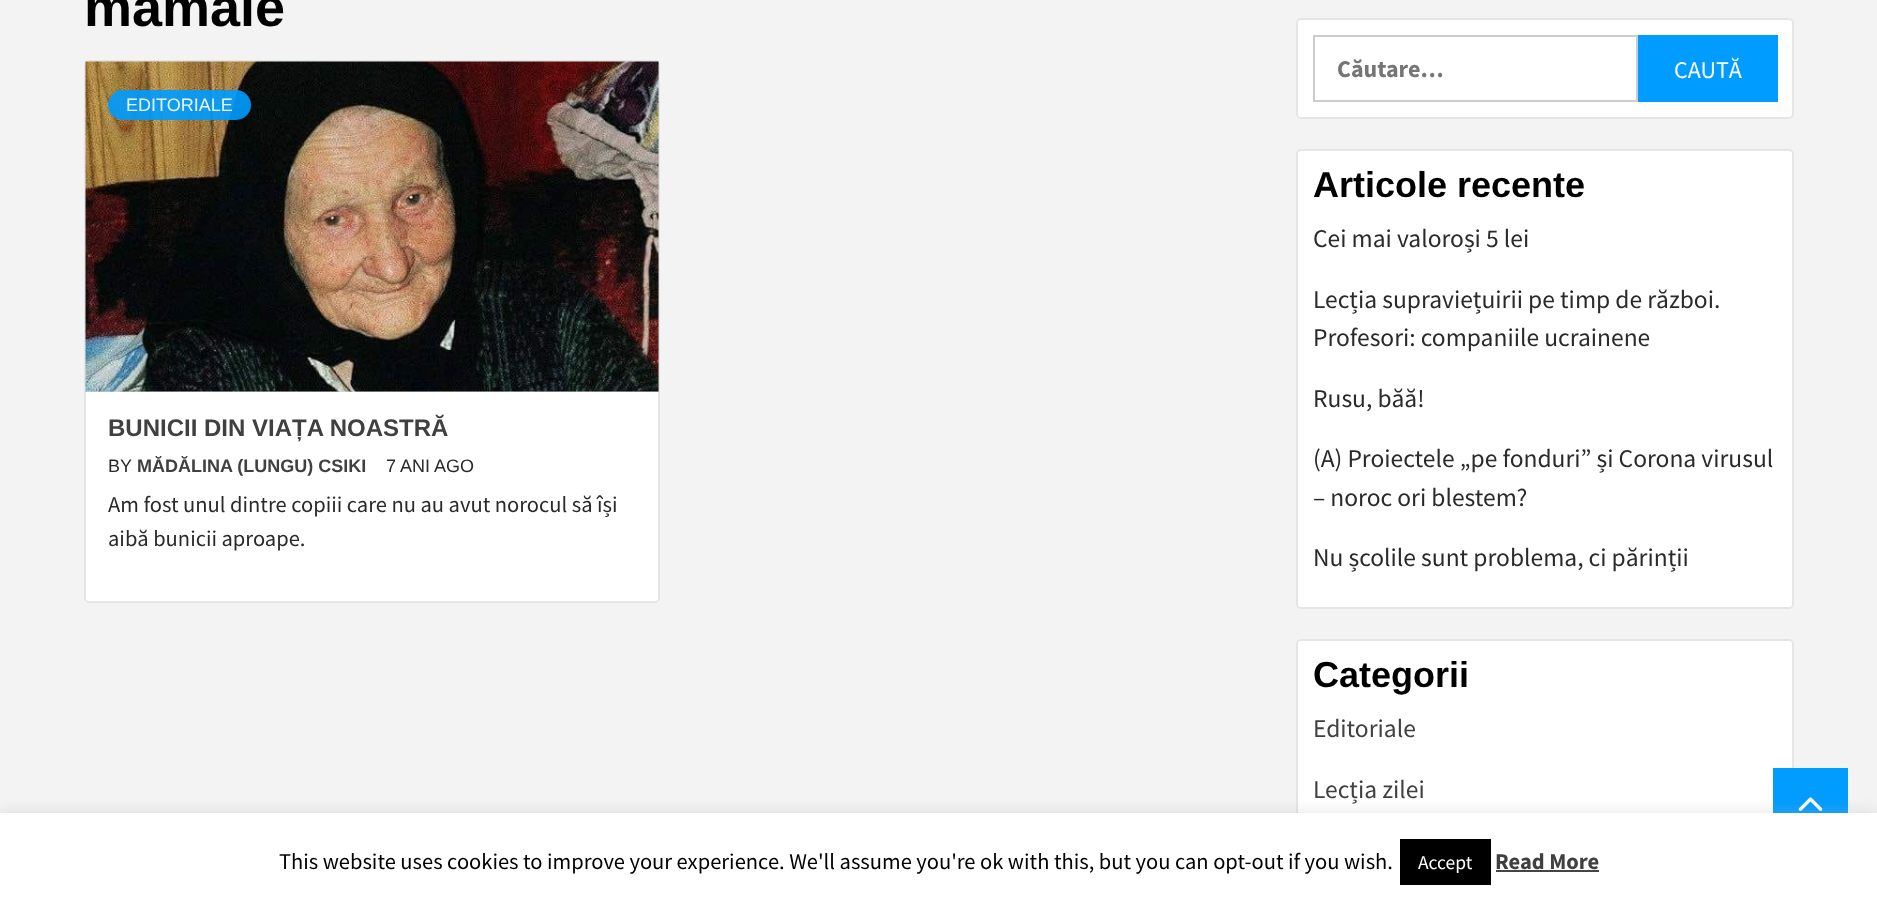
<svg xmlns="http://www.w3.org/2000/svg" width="1877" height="902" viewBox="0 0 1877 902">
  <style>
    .t1 { font: bold 54px Liberation Sans; fill: #000; }
    .t2 { font: 18px Liberation Sans; fill: #e7f5fd; }
    .t3 { font: bold 24px Liberation Sans; fill: #404040; }
    .t4 { font: 18px Liberation Sans; fill: #2a2a2a; }
    .t5 { font: bold 18px Liberation Sans; fill: #404040; }
    .t6 { font: 22.5px Source Sans Pro; fill: #2a2a2a; }
    .t7 { font: bold 24px Source Sans Pro; fill: #757575; }
    .t8 { font: 24px Source Sans Pro; fill: #fff; }
    .t9 { font: bold 36px Liberation Sans; fill: #000; }
    .t10 { font: 25.5px Source Sans Pro; fill: #2a2a2a; }
    .t11 { font: 25.5px Source Sans Pro; fill: #404040; }
    .t12 { font: 22.5px Source Sans Pro; fill: #000; }
    .t13 { font: 19.5px Source Sans Pro; fill: #fff; }
    .t14 { font: bold 22.5px Source Sans Pro; fill: #404040; }
  </style>
  <rect width="100%" height="100%" fill="#f3f3f3"/>
  <text x="84" y="26" class="t1">mamaie</text>
  <rect x="84" y="60" width="576" height="543" rx="5" fill="#fff"/>
  <rect x="85" y="61" width="574" height="541" rx="4" fill="none" stroke="#0001011a" stroke-width="2"/>
  <rect x="86" y="62" width="573" height="330" fill="#d7d7d7"/>
  <image x="85" y="61" width="574" height="331" href="images/1.png"/>
  <rect x="108" y="90" width="143" height="30" rx="15" fill="#009cffe6"/>
  <text x="126" y="111" class="t2">EDITORIALE</text>
  <text x="108" y="436" class="t3">BUNICII DIN VIAȚA NOASTRĂ</text>
  <text x="108" y="472" class="t4">BY</text>
  <text x="137" y="472" class="t5">MĂDĂLINA (LUNGU) CSIKI</text>
  <text x="386" y="472" class="t4">7 ANI AGO</text>
  <text x="108" y="512" class="t6">Am fost unul dintre copiii care nu au avut norocul să își</text>
  <text x="108" y="546" class="t6">aibă bunicii aproape.</text>
  <rect x="1296" y="18" width="498" height="101" rx="5" fill="#fff"/>
  <rect x="1297" y="19" width="496" height="99" rx="4" fill="none" stroke="#0001011a" stroke-width="2"/>
  <rect x="1314" y="36" width="323" height="65" fill="none" stroke="#ccc" stroke-width="2"/>
  <text x="1337" y="77" class="t7">Căutare…</text>
  <rect x="1638" y="35" width="140" height="67" fill="#009cff"/>
  <text x="1674" y="78" class="t8">CAUTĂ</text>
  <rect x="1296" y="149" width="498" height="460" rx="5" fill="#fff"/>
  <rect x="1297" y="150" width="496" height="458" rx="4" fill="none" stroke="#0001011a" stroke-width="2"/>
  <text x="1313" y="197" class="t9">Articole recente</text>
  <text x="1313" y="247" class="t10">Cei mai valoroși 5 lei</text>
  <text x="1313" y="308" class="t10">Lecția supraviețuirii pe timp de război.</text>
  <text x="1313" y="346" class="t10">Profesori: companiile ucrainene</text>
  <text x="1313" y="407" class="t10">Rusu, băă!</text>
  <text x="1313" y="467" class="t10">(A) Proiectele „pe fonduri” și Corona virusul</text>
  <text x="1313" y="506" class="t10">– noroc ori blestem?</text>
  <text x="1313" y="566" class="t10">Nu școlile sunt problema, ci părinții</text>
  <rect x="1296" y="639" width="498" height="201" rx="5" fill="#fff"/>
  <rect x="1297" y="640" width="496" height="199" rx="4" fill="none" stroke="#0001011a" stroke-width="2"/>
  <text x="1313" y="687" class="t9">Categorii</text>
  <text x="1313" y="737" class="t11">Editoriale</text>
  <text x="1313" y="798" class="t11">Lecția zilei</text>
  <rect x="1773" y="768" width="75" height="45" fill="#009cff"/>
  <image x="1798" y="797" width="25" height="14" href="images/2.png"/>
  <rect x="0" y="812" width="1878" height="90" fill="#acabab4d" filter="blur(7.5px)"/>
  <rect x="0" y="813" width="1877" height="89" fill="#fff"/>
  <text x="279" y="869" class="t12">This website uses cookies to improve your experience. We'll assume you're ok with this, but you can opt-out if you wish.</text>
  <rect x="1400" y="839" width="91" height="46" fill="#000"/>
  <text x="1418" y="869" class="t13">Accept</text>
  <text x="1495" y="869" class="t14">Read More</text>
  <rect x="1496" y="870" width="103" height="2" fill="#444"/>
</svg>
